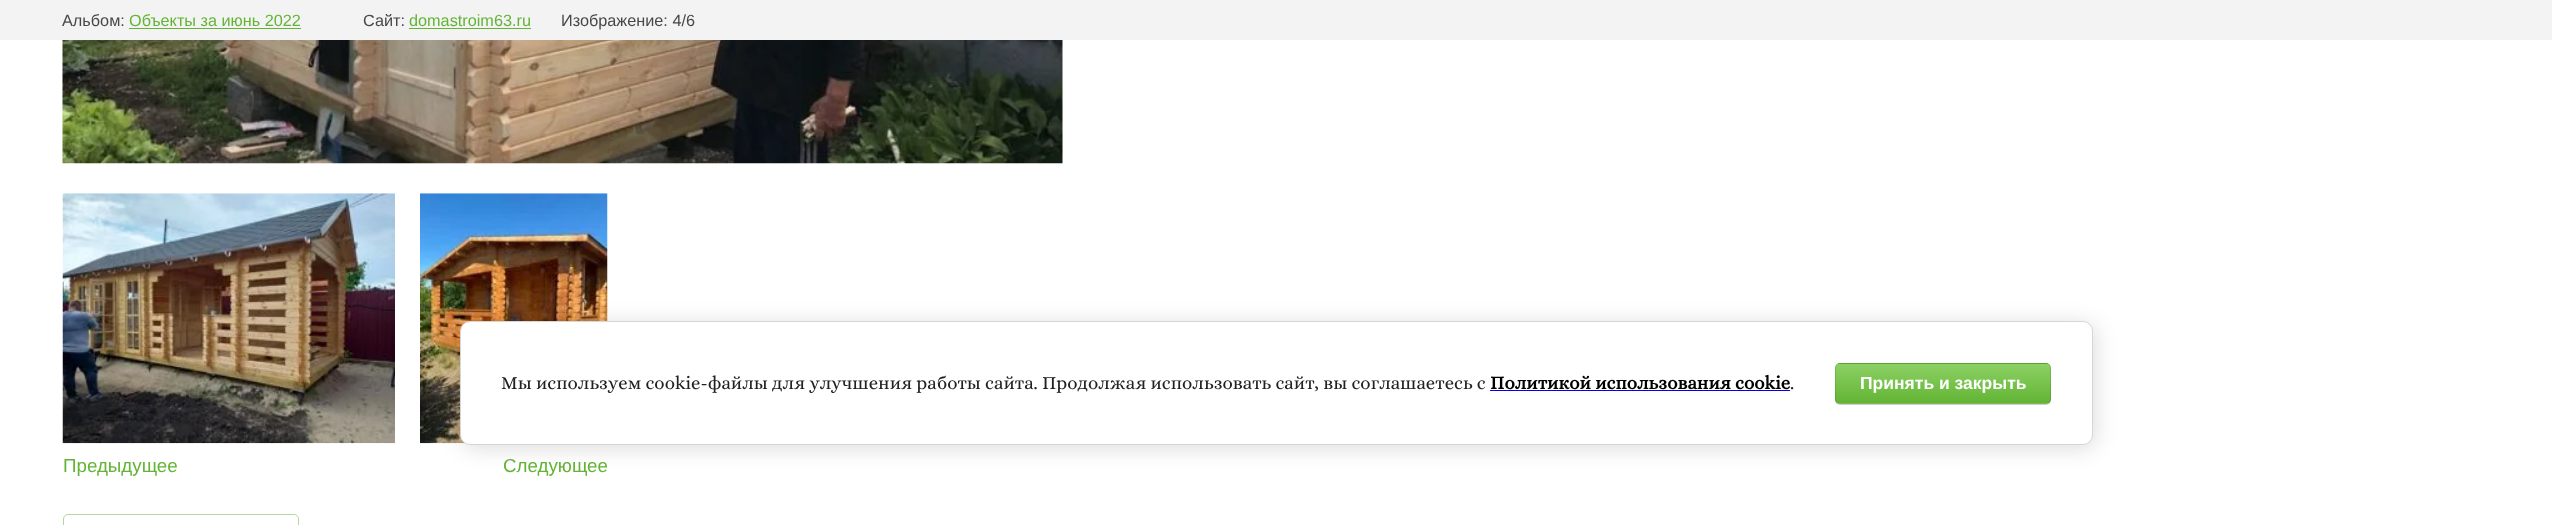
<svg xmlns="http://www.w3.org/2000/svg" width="2552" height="525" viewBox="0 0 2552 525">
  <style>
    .t1 { font: 16.25px Liberation Sans; fill: #484848; }
    .t2 { font: 16.25px Liberation Sans; fill: #63b435; }
    .t3 { font: 18.75px Liberation Sans; fill: #63b435; }
    .t4 { font: 18.75px Alice; fill: #212121; }
    .t5 { font: bold 18.75px Alice; fill: #000; }
    .t6 { font: bold 17.5px Liberation Sans; fill: #fff; }
  </style>
  <defs>
    <clipPath id="clip1"><rect x="1835" y="363" width="216" height="41" rx="5"/></clipPath>
    <linearGradient id="g1" gradientUnits="userSpaceOnUse" x1="1943" y1="325" x2="1943" y2="364"><stop offset="0" stop-color="#8cd164"/><stop offset="1" stop-color="#63b435"/></linearGradient>
    <linearGradient id="g2" gradientUnits="userSpaceOnUse" x1="1943" y1="364" x2="1943" y2="403"><stop offset="0" stop-color="#8cd164"/><stop offset="1" stop-color="#63b435"/></linearGradient>
    <linearGradient id="g3" gradientUnits="userSpaceOnUse" x1="1943" y1="403" x2="1943" y2="441"><stop offset="0" stop-color="#8cd164"/><stop offset="1" stop-color="#63b435"/></linearGradient>
  </defs>
  <rect width="100%" height="100%" fill="#fff"/>
  <rect x="0" y="0" width="2552" height="40" fill="#f3f3f3"/>
  <text x="62" y="26" class="t1">Альбом:</text>
  <text x="129" y="26" class="t2">Объекты за июнь 2022</text>
  <rect x="129" y="28" width="172" height="1" fill="#63b435"/>
  <text x="363" y="26" class="t1">Сайт:</text>
  <text x="409" y="26" class="t2">domastroim63.ru</text>
  <rect x="409" y="28" width="122" height="1" fill="#63b435"/>
  <text x="561" y="26" class="t1">Изображение: 4/6</text>
  <image x="62" y="40" width="1001" height="124" href="images/1.png"/>
  <image x="62" y="193" width="333" height="251" href="images/2.png"/>
  <text x="63" y="472" class="t3">Предыдущее</text>
  <image x="420" y="193" width="188" height="251" href="images/3.png"/>
  <text x="503" y="472" class="t3">Следующее</text>
  <rect x="63.5" y="514.5" width="235" height="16" rx="4.5" fill="none" stroke="#b1da9a"/>
  <rect x="463" y="324" width="1632" height="124" rx="10" fill="#00000024" filter="blur(11px)"/>
  <rect x="460.5" y="321.5" width="1632" height="123" rx="9.5" fill="#fff" stroke="#d6d6d6"/>
  <text x="501" y="389" class="t4">Мы используем cookie-файлы для улучшения работы сайта. Продолжая использовать сайт, вы соглашаетесь с</text>
  <text x="1490" y="389" class="t5">Политикой использования cookie</text>
  <text x="1790" y="389" class="t4">.</text>
  <rect x="1490" y="390" width="300" height="1" fill="#00e"/>
  <rect x="1835" y="364" width="216" height="41" rx="5" fill="#00000033" filter="blur(0.5px)"/>
  <g clip-path="url(#clip1)">
    <rect x="1835" y="363" width="216" height="1" fill="url(#g1)"/>
    <rect x="1835" y="364" width="216" height="39" fill="url(#g2)"/>
    <rect x="1835" y="403" width="216" height="1" fill="url(#g3)"/>
  </g>
  <rect x="1835.5" y="363.5" width="215" height="40" rx="4.5" fill="none" stroke="#0000001a"/>
  <text x="1860" y="389" class="t6">Принять и закрыть</text>
</svg>
